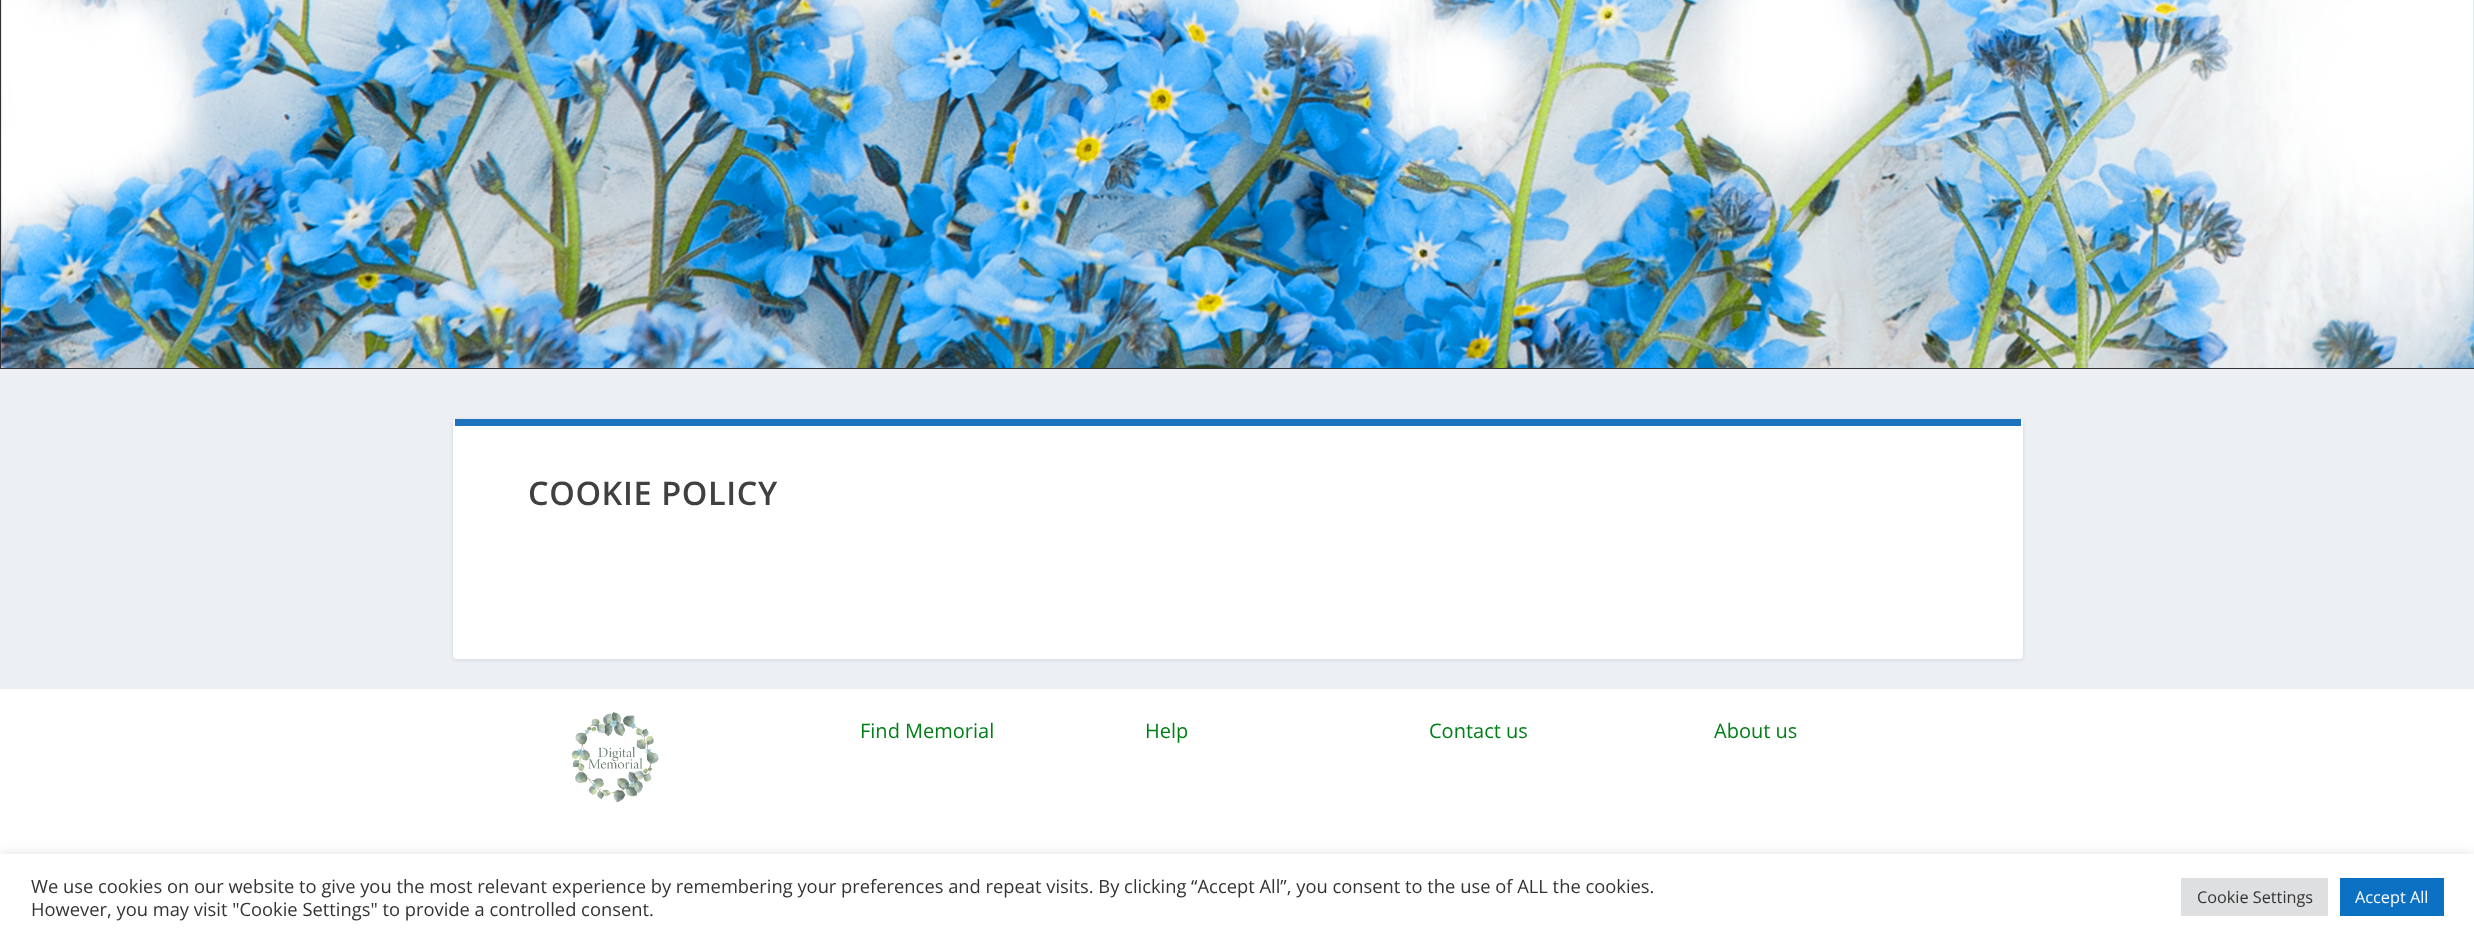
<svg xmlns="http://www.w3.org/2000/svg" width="2474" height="940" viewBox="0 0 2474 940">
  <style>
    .t1 { font: 600 32.5px Open Sans; letter-spacing: 0.6px; fill: #404040; }
    .t2 { font: 20px Open Sans; fill: #007f17; }
    .t3 { font: 18.33px Open Sans; fill: #333; }
    .t4 { font: 16.25px Open Sans; fill: #333; }
    .t5 { font: 16.25px Open Sans; fill: #fff; }
  </style>
  <rect width="100%" height="100%" fill="#ecf0f5"/>
  <image x="1" y="0" width="2473" height="368" href="images/1.png"/>
  <rect x="0.5" y="-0.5" width="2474" height="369" fill="none" stroke="#333"/>
  <rect x="453" y="420" width="1570" height="240" rx="4" fill="#0000001a" filter="blur(2px)"/>
  <rect x="453" y="419" width="1570" height="240" rx="4" fill="#fff"/>
  <rect x="455" y="419" width="1566" height="7" fill="#1e73be"/>
  <text x="528" y="505" class="t1">COOKIE POLICY</text>
  <rect x="0" y="689" width="2474" height="165" fill="#fff"/>
  <image x="571" y="712" width="88" height="91" href="images/2.png"/>
  <text x="860" y="738" class="t2">Find Memorial</text>
  <text x="1145" y="738" class="t2">Help</text>
  <text x="1429" y="738" class="t2">Contact us</text>
  <text x="1714" y="738" class="t2">About us</text>
  <rect x="0" y="853" width="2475" height="86" fill="#acabab4d" filter="blur(6px)"/>
  <rect x="0" y="854" width="2474" height="86" fill="#fff"/>
  <text x="31" y="893" class="t3">We use cookies on our website to give you the most relevant experience by remembering your preferences and repeat visits. By clicking “Accept All”, you consent to the use of ALL the cookies.</text>
  <text x="31" y="916" class="t3">However, you may visit "Cookie Settings" to provide a controlled consent.</text>
  <rect x="2181" y="878" width="147" height="38" fill="#dedfe0"/>
  <text x="2197" y="903" class="t4">Cookie Settings</text>
  <rect x="2340" y="878" width="104" height="38" fill="#0c71c3"/>
  <text x="2355" y="903" class="t5">Accept All</text>
</svg>
